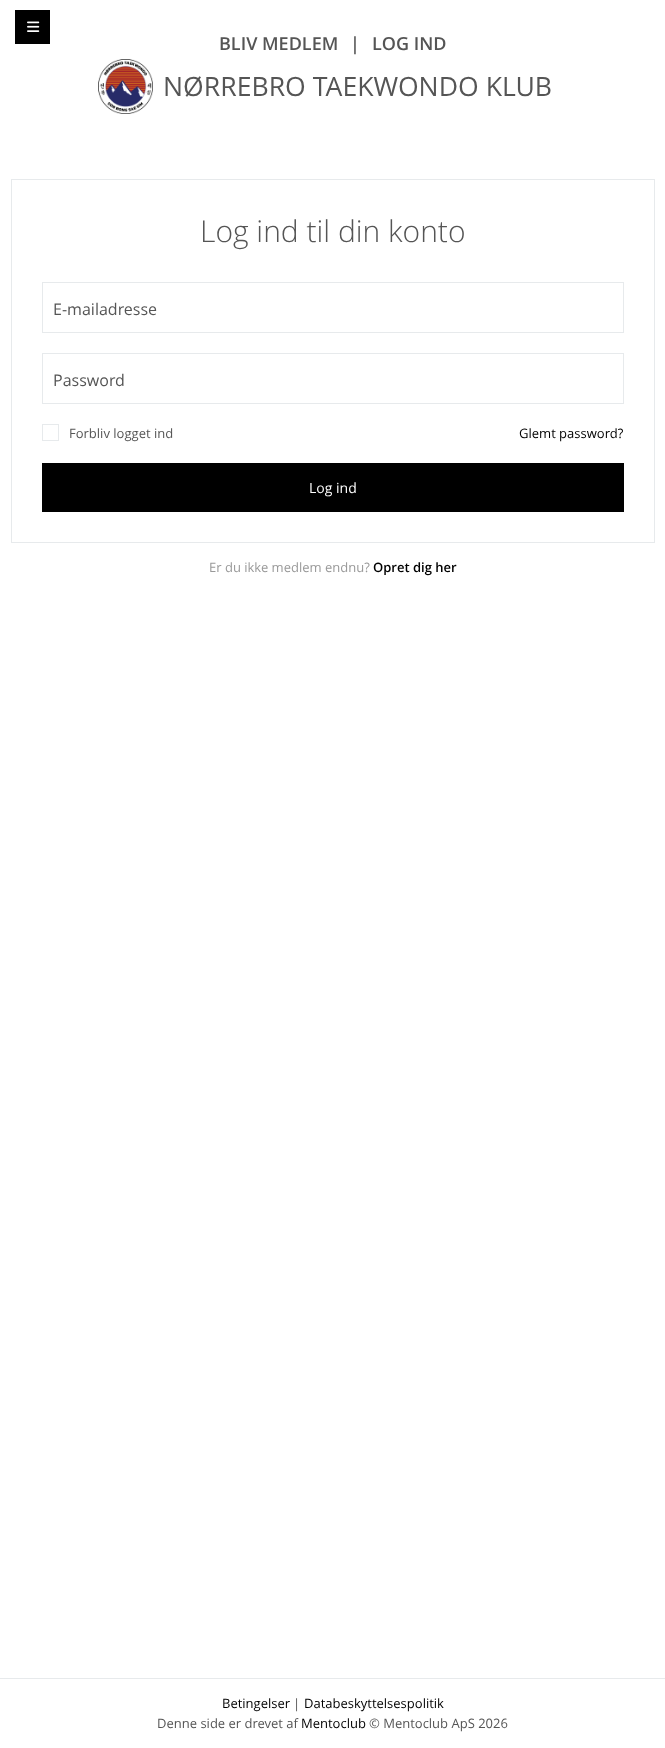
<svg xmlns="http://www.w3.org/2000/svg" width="665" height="1748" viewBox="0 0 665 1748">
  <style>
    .t1 { font: 600 18px Open Sans; fill: #555; }
    .t2 { font: 26.6px Open Sans; fill: #555; }
    .t3 { font: 300 30px Open Sans; fill: #555; }
    .t4 { font: 16px Open Sans; fill: #555; }
    .t5 { font: 13px Open Sans; fill: #555; }
    .t6 { font: 13px Open Sans; fill: #000; }
    .t7 { font: 14px Open Sans; fill: #fff; }
    .t8 { font: 13px Open Sans; fill: #999; }
    .t9 { font: 600 13px Open Sans; fill: #000; }
  </style>
  <rect width="100%" height="100%" fill="#fff"/>
  <rect x="15" y="10" width="35" height="34" fill="#000"/>
  <image x="27" y="21" width="13" height="11" href="images/1.png"/>
  <text x="219" y="50" class="t1">BLIV MEDLEM</text>
  <text x="350" y="50" class="t1">|</text>
  <text x="372" y="50" class="t1">LOG IND</text>
  <image x="98" y="59" width="55" height="55" href="images/2.png"/>
  <text x="163" y="96" class="t2">NØRREBRO TAEKWONDO KLUB</text>
  <rect x="11.5" y="179.5" width="643" height="363" fill="none" stroke="#e7eaec"/>
  <text x="200" y="242" class="t3">Log ind til din konto</text>
  <rect x="42.5" y="282.5" width="581" height="50" fill="none" stroke="#e7eaec"/>
  <text x="53" y="315" class="t4">E-mailadresse</text>
  <rect x="42.5" y="353.5" width="581" height="50" fill="none" stroke="#e7eaec"/>
  <text x="53" y="386" class="t4">Password</text>
  <rect x="42.5" y="424.5" width="16" height="16" fill="none" stroke="#e7eaec"/>
  <text x="69" y="438" class="t5">Forbliv logget ind</text>
  <text x="519" y="438" class="t6">Glemt password?</text>
  <rect x="42" y="463" width="582" height="49" fill="#000"/>
  <text x="309" y="493" class="t7">Log ind</text>
  <text x="209" y="572" class="t8">Er du ikke medlem endnu?</text>
  <text x="373" y="572" class="t9">Opret dig her</text>
  <rect x="0" y="1678" width="665" height="1" fill="#e7eaec"/>
  <text x="222" y="1708" class="t6">Betingelser</text>
  <text x="293" y="1708" class="t5">|</text>
  <text x="304" y="1708" class="t6">Databeskyttelsespolitik</text>
  <text x="157" y="1728" class="t5">Denne side er drevet af</text>
  <text x="301" y="1728" class="t6">Mentoclub</text>
  <text x="369" y="1728" class="t5">© Mentoclub ApS 2026</text>
</svg>
